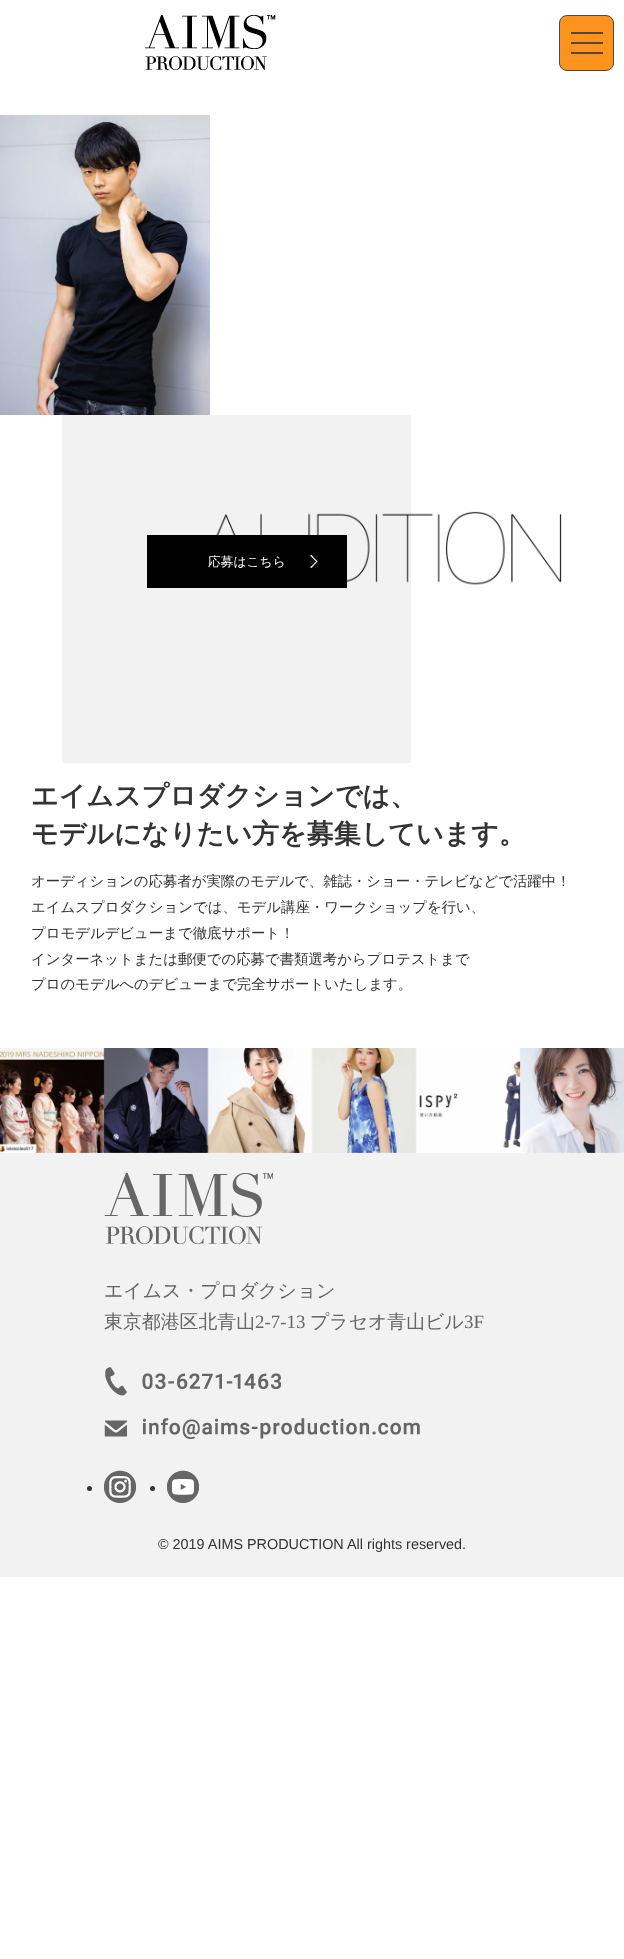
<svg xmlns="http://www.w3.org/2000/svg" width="624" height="1959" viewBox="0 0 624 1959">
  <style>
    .t1 { font: 500 12.75px WenQuanYi Zen Hei; fill: #fff; }
    .t2 { font: bold 27px WenQuanYi Zen Hei; fill: #333; }
    .t3 { font: 500 14.4px WenQuanYi Zen Hei; fill: #333; }
    .t4 { font: 500 18.9px WenQuanYi Zen Hei; fill: #656565; }
    .t5 { font: 18.9px Liberation Serif; fill: #656565; }
    .t6 { font: 14.4px Liberation Sans; fill: #333; }
  </style>
  <rect width="100%" height="100%" fill="#fff"/>
  <image x="145" y="15" width="131" height="55" href="images/1.png"/>
  <rect x="559.5" y="15.5" width="54" height="55" rx="7.5" fill="#ff931e" stroke="#534741"/>
  <rect x="571" y="42" width="32" height="2" fill="#534741"/>
  <rect x="571" y="32" width="32" height="2" fill="#534741"/>
  <rect x="571" y="52" width="32" height="2" fill="#534741"/>
  <image x="0" y="115" width="210" height="300" href="images/2.png"/>
  <image x="62" y="415" width="500" height="348" href="images/3.png"/>
  <rect x="147" y="535" width="200" height="53" fill="#000"/>
  <image x="310" y="555" width="8" height="13" href="images/4.png"/>
  <text x="208" y="566" class="t1">応募はこちら</text>
  <text x="31" y="805" class="t2">エイムスプロダクションでは、</text>
  <text x="31" y="843" class="t2">モデルになりたい方を募集しています。</text>
  <text x="31" y="886" class="t3">オーディションの応募者が実際のモデルで、雑誌・ショー・テレビなどで活躍中！</text>
  <text x="31" y="912" class="t3">エイムスプロダクションでは、モデル講座・ワークショップを行い、</text>
  <text x="31" y="938" class="t3">プロモデルデビューまで徹底サポート！</text>
  <text x="31" y="964" class="t3">インターネットまたは郵便での応募で書類選考からプロテストまで</text>
  <text x="31" y="989" class="t3">プロのモデルへのデビューまで完全サポートいたします。</text>
  <image x="0" y="1048" width="624" height="105" href="images/5.png"/>
  <rect x="0" y="1153" width="624" height="424" fill="#f2f2f2"/>
  <image x="104" y="1173" width="169" height="71" href="images/6.png"/>
  <text x="104" y="1297" class="t4">エイムス・プロダクション</text>
  <text x="104" y="1328" class="t4">東京都港区北青山</text>
  <text x="255" y="1328" class="t5">2-7-13</text>
  <text x="310" y="1328" class="t4">プラセオ青山ビル</text>
  <text x="464" y="1328" class="t5">3F</text>
  <image x="105" y="1367" width="176" height="29" href="images/7.png"/>
  <image x="104" y="1418" width="316" height="21" href="images/8.png"/>
  <circle cx="89.5" cy="1488.5" r="2.5" fill="#333"/>
  <image x="104" y="1470" width="32" height="33" href="images/9.png"/>
  <circle cx="152.5" cy="1488.5" r="2.5" fill="#333"/>
  <image x="167" y="1470" width="32" height="33" href="images/10.png"/>
  <text x="158" y="1549" class="t6">© 2019 AIMS PRODUCTION All rights reserved.</text>
</svg>
